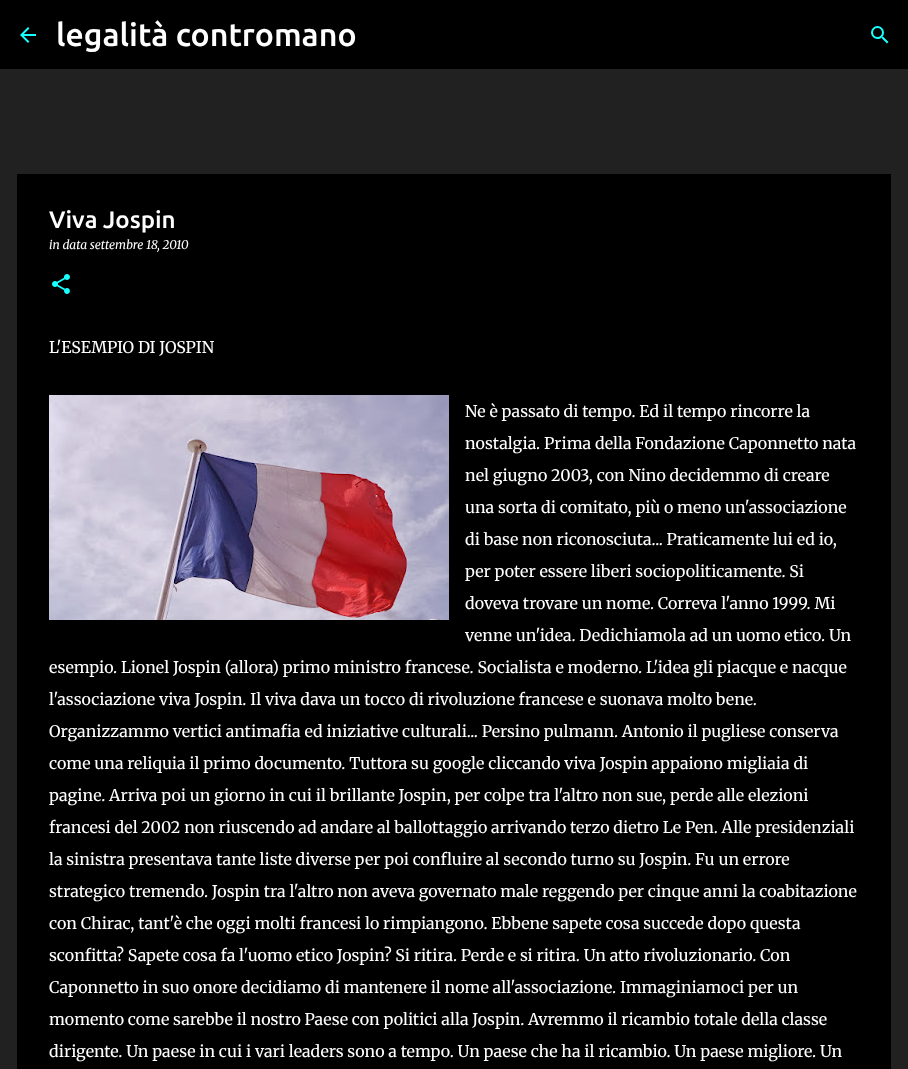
<svg xmlns="http://www.w3.org/2000/svg" width="908" height="1069" viewBox="0 0 908 1069">
  <style>
    .t1 { font: 500 32px Ubuntu; fill: #fff; }
    .t2 { font: 500 24px Ubuntu; fill: #fff; }
    .t3 { font: italic 12px Merriweather; fill: #fff; }
    .t4 { font: 300 16px Merriweather; fill: #fff; }
  </style>
  <rect width="100%" height="100%" fill="#212121"/>
  <rect x="0" y="0" width="908" height="69" fill="#000"/>
  <image x="20" y="27" width="16" height="16" href="images/1.png"/>
  <text x="56" y="46" class="t1">legalità contromano</text>
  <image x="871" y="26" width="18" height="18" href="images/2.png"/>
  <rect x="17" y="174" width="874" height="895" fill="#000"/>
  <text x="49" y="228" class="t2">Viva Jospin</text>
  <text x="49" y="249" class="t3">in data settembre 18, 2010</text>
  <image x="52" y="274" width="18" height="20" href="images/3.png"/>
  <text x="49" y="353" class="t4">L'ESEMPIO DI JOSPIN</text>
  <image x="49" y="395" width="400" height="225" href="images/4.png"/>
  <text x="465" y="417" class="t4">Ne è passato di tempo. Ed il tempo rincorre la</text>
  <text x="465" y="449" class="t4">nostalgia. Prima della Fondazione Caponnetto nata</text>
  <text x="465" y="481" class="t4">nel giugno 2003, con Nino decidemmo di creare</text>
  <text x="465" y="513" class="t4">una sorta di comitato, più o meno un'associazione</text>
  <text x="465" y="545" class="t4">di base non riconosciuta... Praticamente lui ed io,</text>
  <text x="465" y="577" class="t4">per poter essere liberi sociopoliticamente. Si</text>
  <text x="465" y="609" class="t4">doveva trovare un nome. Correva l'anno 1999. Mi</text>
  <text x="465" y="641" class="t4">venne un'idea. Dedichiamola ad un uomo etico. Un</text>
  <text x="49" y="673" class="t4">esempio. Lionel Jospin (allora) primo ministro francese. Socialista e moderno. L'idea gli piacque e nacque</text>
  <text x="49" y="705" class="t4">l'associazione viva Jospin. Il viva dava un tocco di rivoluzione francese e suonava molto bene.</text>
  <text x="49" y="737" class="t4">Organizzammo vertici antimafia ed iniziative culturali... Persino pulmann. Antonio il pugliese conserva</text>
  <text x="49" y="769" class="t4">come una reliquia il primo documento. Tuttora su google cliccando viva Jospin appaiono migliaia di</text>
  <text x="49" y="801" class="t4">pagine. Arriva poi un giorno in cui il brillante Jospin, per colpe tra l'altro non sue, perde alle elezioni</text>
  <text x="49" y="833" class="t4">francesi del 2002 non riuscendo ad andare al ballottaggio arrivando terzo dietro Le Pen. Alle presidenziali</text>
  <text x="49" y="865" class="t4">la sinistra presentava tante liste diverse per poi confluire al secondo turno su Jospin. Fu un errore</text>
  <text x="49" y="897" class="t4">strategico tremendo. Jospin tra l'altro non aveva governato male reggendo per cinque anni la coabitazione</text>
  <text x="49" y="929" class="t4">con Chirac, tant'è che oggi molti francesi lo rimpiangono. Ebbene sapete cosa succede dopo questa</text>
  <text x="49" y="961" class="t4">sconfitta? Sapete cosa fa l'uomo etico Jospin? Si ritira. Perde e si ritira. Un atto rivoluzionario. Con</text>
  <text x="49" y="993" class="t4">Caponnetto in suo onore decidiamo di mantenere il nome all'associazione. Immaginiamoci per un</text>
  <text x="49" y="1025" class="t4">momento come sarebbe il nostro Paese con politici alla Jospin. Avremmo il ricambio totale della classe</text>
  <text x="49" y="1057" class="t4">dirigente. Un paese in cui i vari leaders sono a tempo. Un paese che ha il ricambio. Un paese migliore. Un</text>
</svg>
